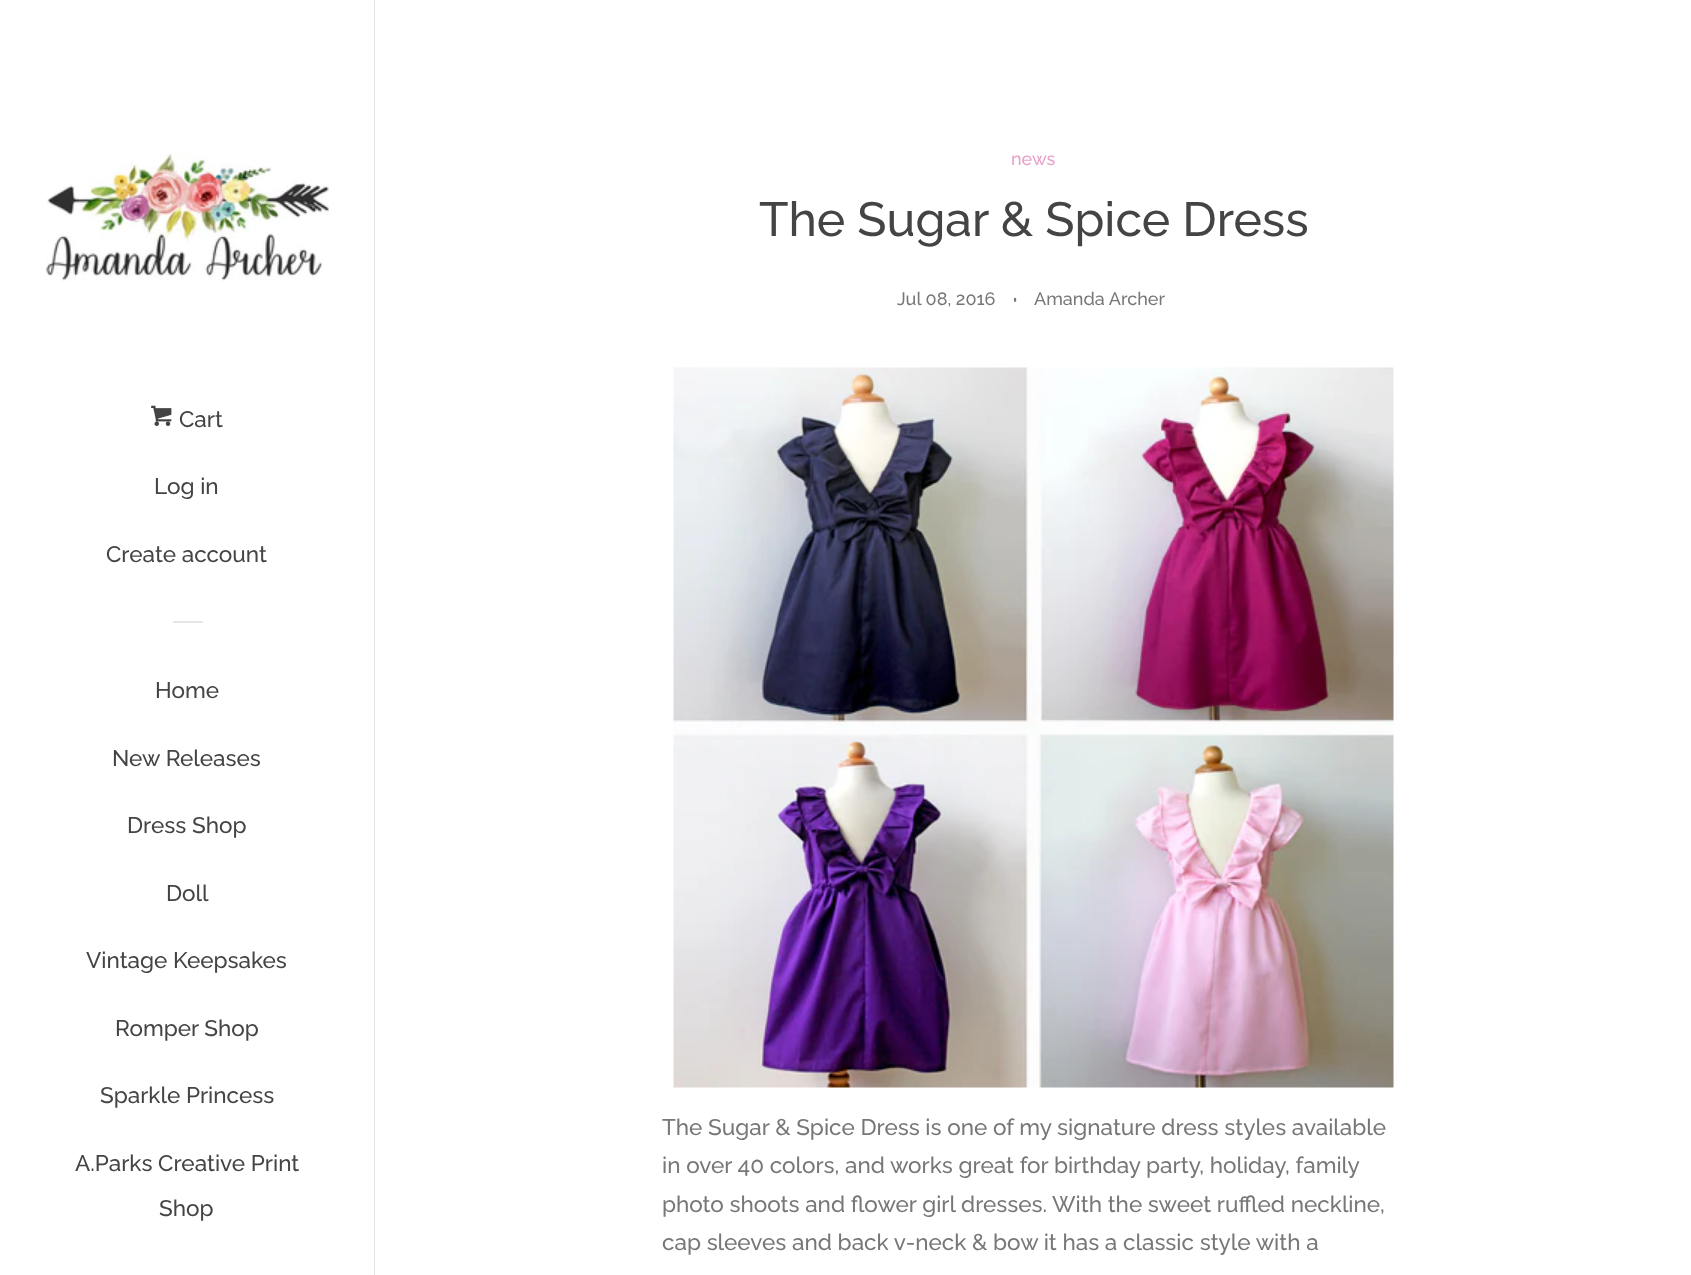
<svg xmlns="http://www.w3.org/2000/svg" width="1691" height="1275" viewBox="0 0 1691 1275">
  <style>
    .t1 { font: 500 22.5px Raleway; fill: #444; }
    .t2 { font: 500 18px Raleway; fill: #e89fca; }
    .t3 { font: 500 48px Raleway; fill: #444; }
    .t4 { font: 500 18px Raleway; fill: #777; }
    .t5 { font: 500 30px Raleway; fill: #777; }
    .t6 { font: 500 22.5px Raleway; fill: #777; }
  </style>
  <rect width="100%" height="100%" fill="#fff"/>
  <rect x="374" y="0" width="1" height="1275" fill="#e7e7e7"/>
  <image x="46" y="153" width="283" height="128" href="images/1.png"/>
  <image x="151" y="405" width="21" height="21" href="images/2.png"/>
  <text x="179" y="427" class="t1">Cart</text>
  <text x="154" y="494" class="t1">Log in</text>
  <text x="106" y="562" class="t1">Create account</text>
  <rect x="173" y="621" width="30" height="2" fill="#e6e6e6"/>
  <text x="155" y="698" class="t1">Home</text>
  <text x="112" y="766" class="t1">New Releases</text>
  <text x="127" y="833" class="t1">Dress Shop</text>
  <text x="166" y="901" class="t1">Doll</text>
  <text x="86" y="968" class="t1">Vintage Keepsakes</text>
  <text x="115" y="1036" class="t1">Romper Shop</text>
  <text x="100" y="1103" class="t1">Sparkle Princess</text>
  <text x="75" y="1171" class="t1">A.Parks Creative Print</text>
  <text x="159" y="1216" class="t1">Shop</text>
  <text x="1011" y="165" class="t2">news</text>
  <text x="759" y="236" class="t3">The Sugar &amp; Spice Dress</text>
  <text x="897" y="305" class="t4">Jul 08, 2016</text>
  <text x="1012" y="309" class="t5">·</text>
  <text x="1034" y="305" class="t4">Amanda Archer</text>
  <image x="673" y="367" width="721" height="721" href="images/3.png"/>
  <text x="662" y="1135" class="t6">The Sugar &amp; Spice Dress is one of my signature dress styles available</text>
  <text x="662" y="1173" class="t6">in over 40 colors, and works great for birthday party, holiday, family</text>
  <text x="662" y="1212" class="t6">photo shoots and flower girl dresses. With the sweet ruffled neckline,</text>
  <text x="662" y="1250" class="t6">cap sleeves and back v-neck &amp; bow it has a classic style with a</text>
</svg>
